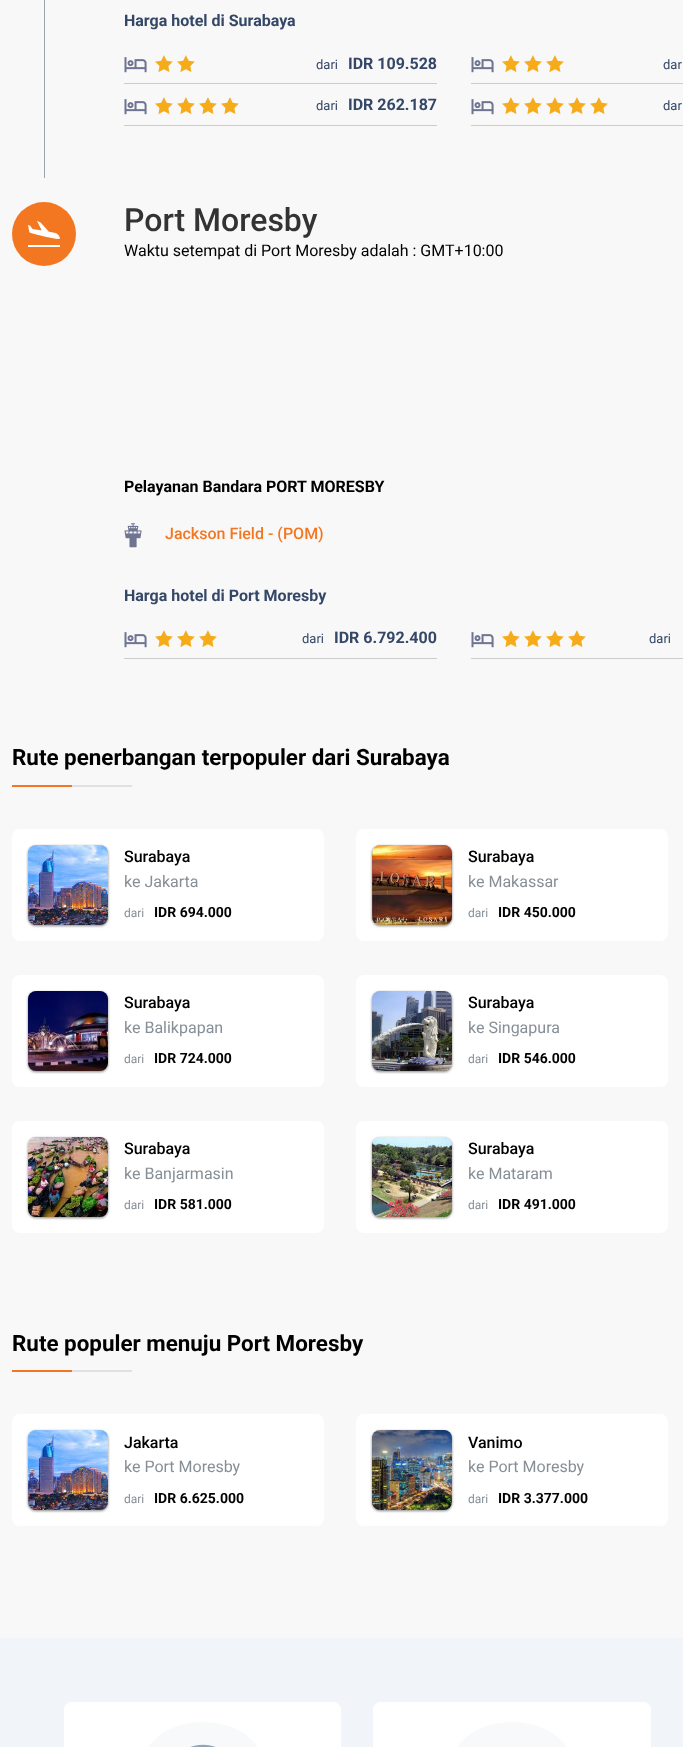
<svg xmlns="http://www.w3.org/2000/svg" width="683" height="1747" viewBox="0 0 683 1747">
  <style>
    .t1 { font: bold 16px Roboto; fill: #344767; }
    .t2 { font: 13px Roboto; fill: #344767; }
    .t3 { font: 500 32px Roboto; fill: #333; }
    .t4 { font: 16px Roboto; fill: #000; }
    .t5 { font: bold 16px Roboto; fill: #000; }
    .t6 { font: 500 16px Roboto; fill: #f37721; }
    .t7 { font: bold 22.4px Roboto; fill: #000; }
    .t8 { font: 500 16px Roboto; fill: #000; }
    .t9 { font: 16px Roboto; fill: #868e96; }
    .t10 { font: 12px Roboto; fill: #868e96; }
    .t11 { font: bold 14px Roboto; fill: #000; }
  </style>
  <rect width="100%" height="100%" fill="#f8f8f8"/>
  <rect x="44" y="0" width="1" height="178" fill="#9ca3af"/>
  <text x="124" y="26" class="t1">Harga hotel di Surabaya</text>
  <rect x="124" y="83" width="313" height="1" fill="#ccc"/>
  <image x="124" y="57" width="23" height="16" href="images/1.png"/>
  <image x="155" y="55" width="18" height="17" href="images/2.png"/>
  <image x="177" y="55" width="18" height="17" href="images/2.png"/>
  <text x="316" y="69" class="t2">dari</text>
  <text x="348" y="69" class="t1">IDR 109.528</text>
  <rect x="471" y="83" width="212" height="1" fill="#ccc"/>
  <image x="471" y="57" width="23" height="16" href="images/1.png"/>
  <image x="502" y="55" width="18" height="17" href="images/2.png"/>
  <image x="524" y="55" width="18" height="17" href="images/2.png"/>
  <image x="546" y="55" width="18" height="17" href="images/2.png"/>
  <text x="663" y="69" class="t2">dar</text>
  <rect x="124" y="125" width="313" height="1" fill="#ccc"/>
  <image x="124" y="99" width="23" height="16" href="images/1.png"/>
  <image x="155" y="97" width="18" height="17" href="images/2.png"/>
  <image x="177" y="97" width="18" height="17" href="images/2.png"/>
  <image x="199" y="97" width="18" height="17" href="images/2.png"/>
  <image x="221" y="97" width="18" height="17" href="images/2.png"/>
  <text x="316" y="110" class="t2">dari</text>
  <text x="348" y="110" class="t1">IDR 262.187</text>
  <rect x="471" y="125" width="212" height="1" fill="#ccc"/>
  <image x="471" y="99" width="23" height="16" href="images/1.png"/>
  <image x="502" y="97" width="18" height="17" href="images/2.png"/>
  <image x="524" y="97" width="18" height="17" href="images/2.png"/>
  <image x="546" y="97" width="18" height="17" href="images/2.png"/>
  <image x="568" y="97" width="18" height="17" href="images/2.png"/>
  <image x="590" y="97" width="18" height="17" href="images/2.png"/>
  <text x="663" y="110" class="t2">dar</text>
  <circle cx="44" cy="234" r="32" fill="#f37721"/>
  <image x="28" y="221" width="32" height="26" href="images/3.png"/>
  <text x="124" y="231" class="t3">Port Moresby</text>
  <text x="124" y="256" class="t4">Waktu setempat di Port Moresby adalah : GMT+10:00</text>
  <text x="124" y="492" class="t5">Pelayanan Bandara PORT MORESBY</text>
  <image x="124" y="523" width="18" height="25" href="images/4.png"/>
  <text x="165" y="539" class="t6">Jackson Field - (POM)</text>
  <text x="124" y="601" class="t1">Harga hotel di Port Moresby</text>
  <rect x="124" y="658" width="313" height="1" fill="#ccc"/>
  <image x="124" y="632" width="23" height="16" href="images/1.png"/>
  <image x="155" y="630" width="18" height="17" href="images/2.png"/>
  <image x="177" y="630" width="18" height="17" href="images/2.png"/>
  <image x="199" y="630" width="18" height="17" href="images/2.png"/>
  <text x="302" y="643" class="t2">dari</text>
  <text x="334" y="643" class="t1">IDR 6.792.400</text>
  <rect x="471" y="658" width="212" height="1" fill="#ccc"/>
  <image x="471" y="632" width="23" height="16" href="images/1.png"/>
  <image x="502" y="630" width="18" height="17" href="images/2.png"/>
  <image x="524" y="630" width="18" height="17" href="images/2.png"/>
  <image x="546" y="630" width="18" height="17" href="images/2.png"/>
  <image x="568" y="630" width="18" height="17" href="images/2.png"/>
  <text x="649" y="643" class="t2">dari</text>
  <text x="12" y="765" class="t7">Rute penerbangan terpopuler dari Surabaya</text>
  <rect x="72" y="785" width="60" height="2" fill="#e1e1e1"/>
  <rect x="12" y="785" width="60" height="2" fill="#f37721"/>
  <rect x="12" y="829" width="312" height="112" rx="8" fill="#fff"/>
  <rect x="28" y="846" width="80" height="80" rx="8" fill="#0000004d" filter="blur(1px)"/>
  <rect x="28" y="846" width="80" height="80" rx="8" fill="#00000033" filter="blur(1.5px)"/>
  <image x="28" y="845" width="80" height="80" href="images/5.png"/>
  <text x="124" y="862" class="t8">Surabaya</text>
  <text x="124" y="887" class="t9">ke Jakarta</text>
  <text x="124" y="917" class="t10">dari</text>
  <text x="154" y="917" class="t11">IDR 694.000</text>
  <rect x="356" y="829" width="312" height="112" rx="8" fill="#fff"/>
  <rect x="372" y="846" width="80" height="80" rx="8" fill="#0000004d" filter="blur(1px)"/>
  <rect x="372" y="846" width="80" height="80" rx="8" fill="#00000033" filter="blur(1.5px)"/>
  <image x="372" y="845" width="80" height="80" href="images/6.png"/>
  <text x="468" y="862" class="t8">Surabaya</text>
  <text x="468" y="887" class="t9">ke Makassar</text>
  <text x="468" y="917" class="t10">dari</text>
  <text x="498" y="917" class="t11">IDR 450.000</text>
  <rect x="12" y="975" width="312" height="112" rx="8" fill="#fff"/>
  <rect x="28" y="992" width="80" height="80" rx="8" fill="#0000004d" filter="blur(1px)"/>
  <rect x="28" y="992" width="80" height="80" rx="8" fill="#00000033" filter="blur(1.5px)"/>
  <image x="28" y="991" width="80" height="80" href="images/7.png"/>
  <text x="124" y="1008" class="t8">Surabaya</text>
  <text x="124" y="1033" class="t9">ke Balikpapan</text>
  <text x="124" y="1063" class="t10">dari</text>
  <text x="154" y="1063" class="t11">IDR 724.000</text>
  <rect x="356" y="975" width="312" height="112" rx="8" fill="#fff"/>
  <rect x="372" y="992" width="80" height="80" rx="8" fill="#0000004d" filter="blur(1px)"/>
  <rect x="372" y="992" width="80" height="80" rx="8" fill="#00000033" filter="blur(1.5px)"/>
  <image x="372" y="991" width="80" height="80" href="images/8.png"/>
  <text x="468" y="1008" class="t8">Surabaya</text>
  <text x="468" y="1033" class="t9">ke Singapura</text>
  <text x="468" y="1063" class="t10">dari</text>
  <text x="498" y="1063" class="t11">IDR 546.000</text>
  <rect x="12" y="1121" width="312" height="112" rx="8" fill="#fff"/>
  <rect x="28" y="1138" width="80" height="80" rx="8" fill="#0000004d" filter="blur(1px)"/>
  <rect x="28" y="1138" width="80" height="80" rx="8" fill="#00000033" filter="blur(1.5px)"/>
  <image x="28" y="1137" width="80" height="80" href="images/9.png"/>
  <text x="124" y="1154" class="t8">Surabaya</text>
  <text x="124" y="1179" class="t9">ke Banjarmasin</text>
  <text x="124" y="1209" class="t10">dari</text>
  <text x="154" y="1209" class="t11">IDR 581.000</text>
  <rect x="356" y="1121" width="312" height="112" rx="8" fill="#fff"/>
  <rect x="372" y="1138" width="80" height="80" rx="8" fill="#0000004d" filter="blur(1px)"/>
  <rect x="372" y="1138" width="80" height="80" rx="8" fill="#00000033" filter="blur(1.5px)"/>
  <image x="372" y="1137" width="80" height="80" href="images/10.png"/>
  <text x="468" y="1154" class="t8">Surabaya</text>
  <text x="468" y="1179" class="t9">ke Mataram</text>
  <text x="468" y="1209" class="t10">dari</text>
  <text x="498" y="1209" class="t11">IDR 491.000</text>
  <text x="12" y="1351" class="t7">Rute populer menuju Port Moresby</text>
  <rect x="72" y="1370" width="60" height="2" fill="#e1e1e1"/>
  <rect x="12" y="1370" width="60" height="2" fill="#f37721"/>
  <rect x="12" y="1414" width="312" height="112" rx="8" fill="#fff"/>
  <rect x="28" y="1431" width="80" height="80" rx="8" fill="#0000004d" filter="blur(1px)"/>
  <rect x="28" y="1431" width="80" height="80" rx="8" fill="#00000033" filter="blur(1.5px)"/>
  <image x="28" y="1430" width="80" height="80" href="images/5.png"/>
  <text x="124" y="1448" class="t8">Jakarta</text>
  <text x="124" y="1472" class="t9">ke Port Moresby</text>
  <text x="124" y="1503" class="t10">dari</text>
  <text x="154" y="1503" class="t11">IDR 6.625.000</text>
  <rect x="356" y="1414" width="312" height="112" rx="8" fill="#fff"/>
  <rect x="372" y="1431" width="80" height="80" rx="8" fill="#0000004d" filter="blur(1px)"/>
  <rect x="372" y="1431" width="80" height="80" rx="8" fill="#00000033" filter="blur(1.5px)"/>
  <image x="372" y="1430" width="80" height="80" href="images/11.png"/>
  <text x="468" y="1448" class="t8">Vanimo</text>
  <text x="468" y="1472" class="t9">ke Port Moresby</text>
  <text x="468" y="1503" class="t10">dari</text>
  <text x="498" y="1503" class="t11">IDR 3.377.000</text>
  <rect x="0" y="1638" width="683" height="109" fill="#f1f5f9"/>
  <rect x="64" y="1702" width="277" height="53" rx="8" fill="#fff"/>
  <rect x="143" y="1722" width="120" height="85" rx="60" fill="#f8f9fa"/>
  <image x="190" y="1744" width="26" height="3" href="images/12.png"/>
  <rect x="373" y="1702" width="278" height="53" rx="8" fill="#fff"/>
  <rect x="452" y="1722" width="120" height="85" rx="60" fill="#f8f9fa"/>
</svg>
